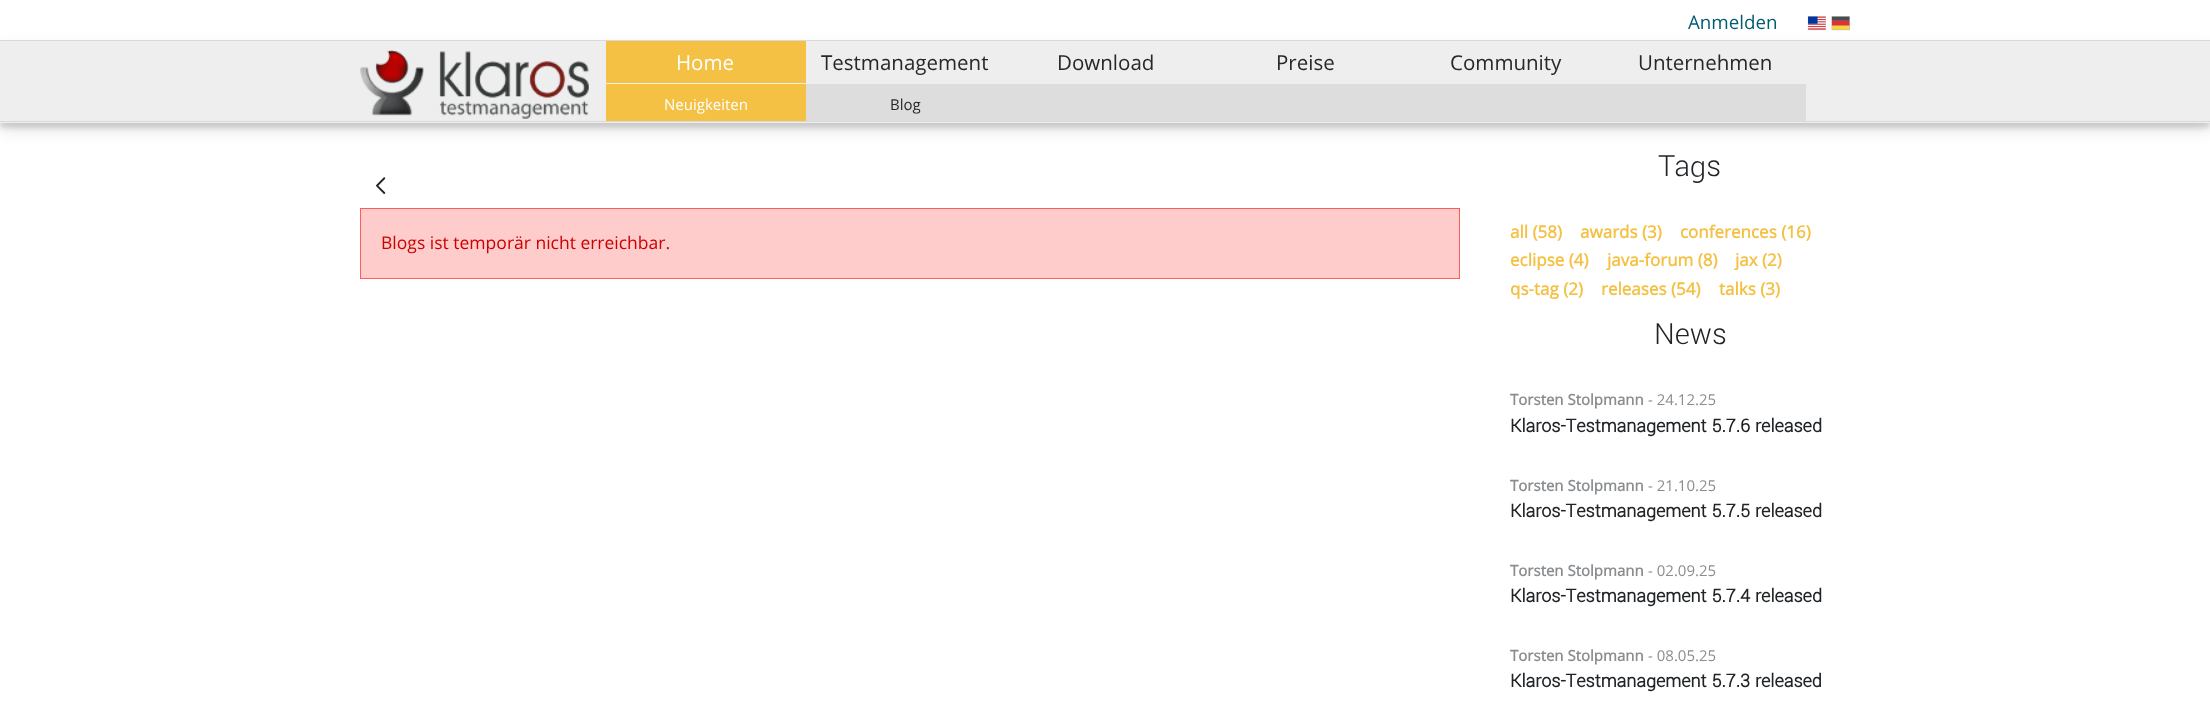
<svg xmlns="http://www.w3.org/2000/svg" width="2210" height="722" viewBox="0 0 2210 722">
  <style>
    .t1 { font: 18.75px Open Sans; fill: #005c73; }
    .t2 { font: 20.5px Open Sans; fill: #fff; }
    .t3 { font: 20.5px Open Sans; fill: #282828; }
    .t4 { font: 15px Open Sans; fill: #fff; }
    .t5 { font: 15px Open Sans; fill: #282828; }
    .t6 { font: 17.5px Open Sans; fill: #c00; }
    .t7 { font: 300 32.5px Yantramanav; fill: #212427; }
    .t8 { font: bold 17px Open Sans; fill: #f4c145; }
    .t9 { font: bold 15px Open Sans; fill: #8a8d90; }
    .t10 { font: 15px Open Sans; fill: #8a8d90; }
    .t11 { font: bold 20px Yantramanav; fill: #212427; }
  </style>
  <rect width="100%" height="100%" fill="#fff"/>
  <text x="1688" y="29" class="t1">Anmelden</text>
  <image x="1807" y="16" width="19" height="15" href="images/1.png"/>
  <image x="1831" y="16" width="19" height="15" href="images/2.png"/>
  <rect x="0" y="45" width="2210" height="83" fill="#00000021" filter="blur(2.5px)"/>
  <rect x="0" y="48" width="2210" height="82" fill="#0000001c" filter="blur(7.5px)"/>
  <rect x="0" y="41" width="2210" height="82" fill="#eee"/>
  <rect x="0" y="40" width="2210" height="1" fill="#d9d9d9"/>
  <rect x="0" y="121" width="2210" height="1" fill="#d9d9d9"/>
  <image x="360" y="50" width="229" height="69" href="images/3.png"/>
  <rect x="606" y="41" width="200" height="42" fill="#f4c145"/>
  <text x="676" y="70" class="t2">Home</text>
  <text x="821" y="70" class="t3">Testmanagement</text>
  <text x="1057" y="70" class="t3">Download</text>
  <text x="1276" y="70" class="t3">Preise</text>
  <text x="1450" y="70" class="t3">Community</text>
  <text x="1638" y="70" class="t3">Unternehmen</text>
  <rect x="806" y="84" width="1000" height="37" fill="#ddd"/>
  <rect x="606" y="84" width="200" height="37" fill="#f4c145"/>
  <text x="664" y="110" class="t4">Neuigkeiten</text>
  <text x="890" y="110" class="t5">Blog</text>
  <image x="376" y="177" width="10" height="17" href="images/4.png"/>
  <rect x="360.5" y="208.5" width="1099" height="70" fill="#fcc" stroke="#ff5c5c"/>
  <text x="381" y="249" class="t6">Blogs ist temporär nicht erreichbar.</text>
  <text x="1658" y="176" class="t7">Tags</text>
  <text x="1510" y="238" class="t8">all (58)</text>
  <text x="1580" y="238" class="t8">awards (3)</text>
  <text x="1680" y="238" class="t8">conferences (16)</text>
  <text x="1510" y="266" class="t8">eclipse (4)</text>
  <text x="1607" y="266" class="t8">java-forum (8)</text>
  <text x="1735" y="266" class="t8">jax (2)</text>
  <text x="1510" y="295" class="t8">qs-tag (2)</text>
  <text x="1601" y="295" class="t8">releases (54)</text>
  <text x="1719" y="295" class="t8">talks (3)</text>
  <text x="1654" y="344" class="t7">News</text>
  <text x="1510" y="405" class="t9">Torsten Stolpmann</text>
  <text x="1648" y="405" class="t10">- 24.12.25</text>
  <text x="1510" y="432" class="t11">Klaros-Testmanagement 5.7.6 released</text>
  <text x="1510" y="491" class="t9">Torsten Stolpmann</text>
  <text x="1648" y="491" class="t10">- 21.10.25</text>
  <text x="1510" y="517" class="t11">Klaros-Testmanagement 5.7.5 released</text>
  <text x="1510" y="576" class="t9">Torsten Stolpmann</text>
  <text x="1648" y="576" class="t10">- 02.09.25</text>
  <text x="1510" y="602" class="t11">Klaros-Testmanagement 5.7.4 released</text>
  <text x="1510" y="661" class="t9">Torsten Stolpmann</text>
  <text x="1648" y="661" class="t10">- 08.05.25</text>
  <text x="1510" y="687" class="t11">Klaros-Testmanagement 5.7.3 released</text>
</svg>
